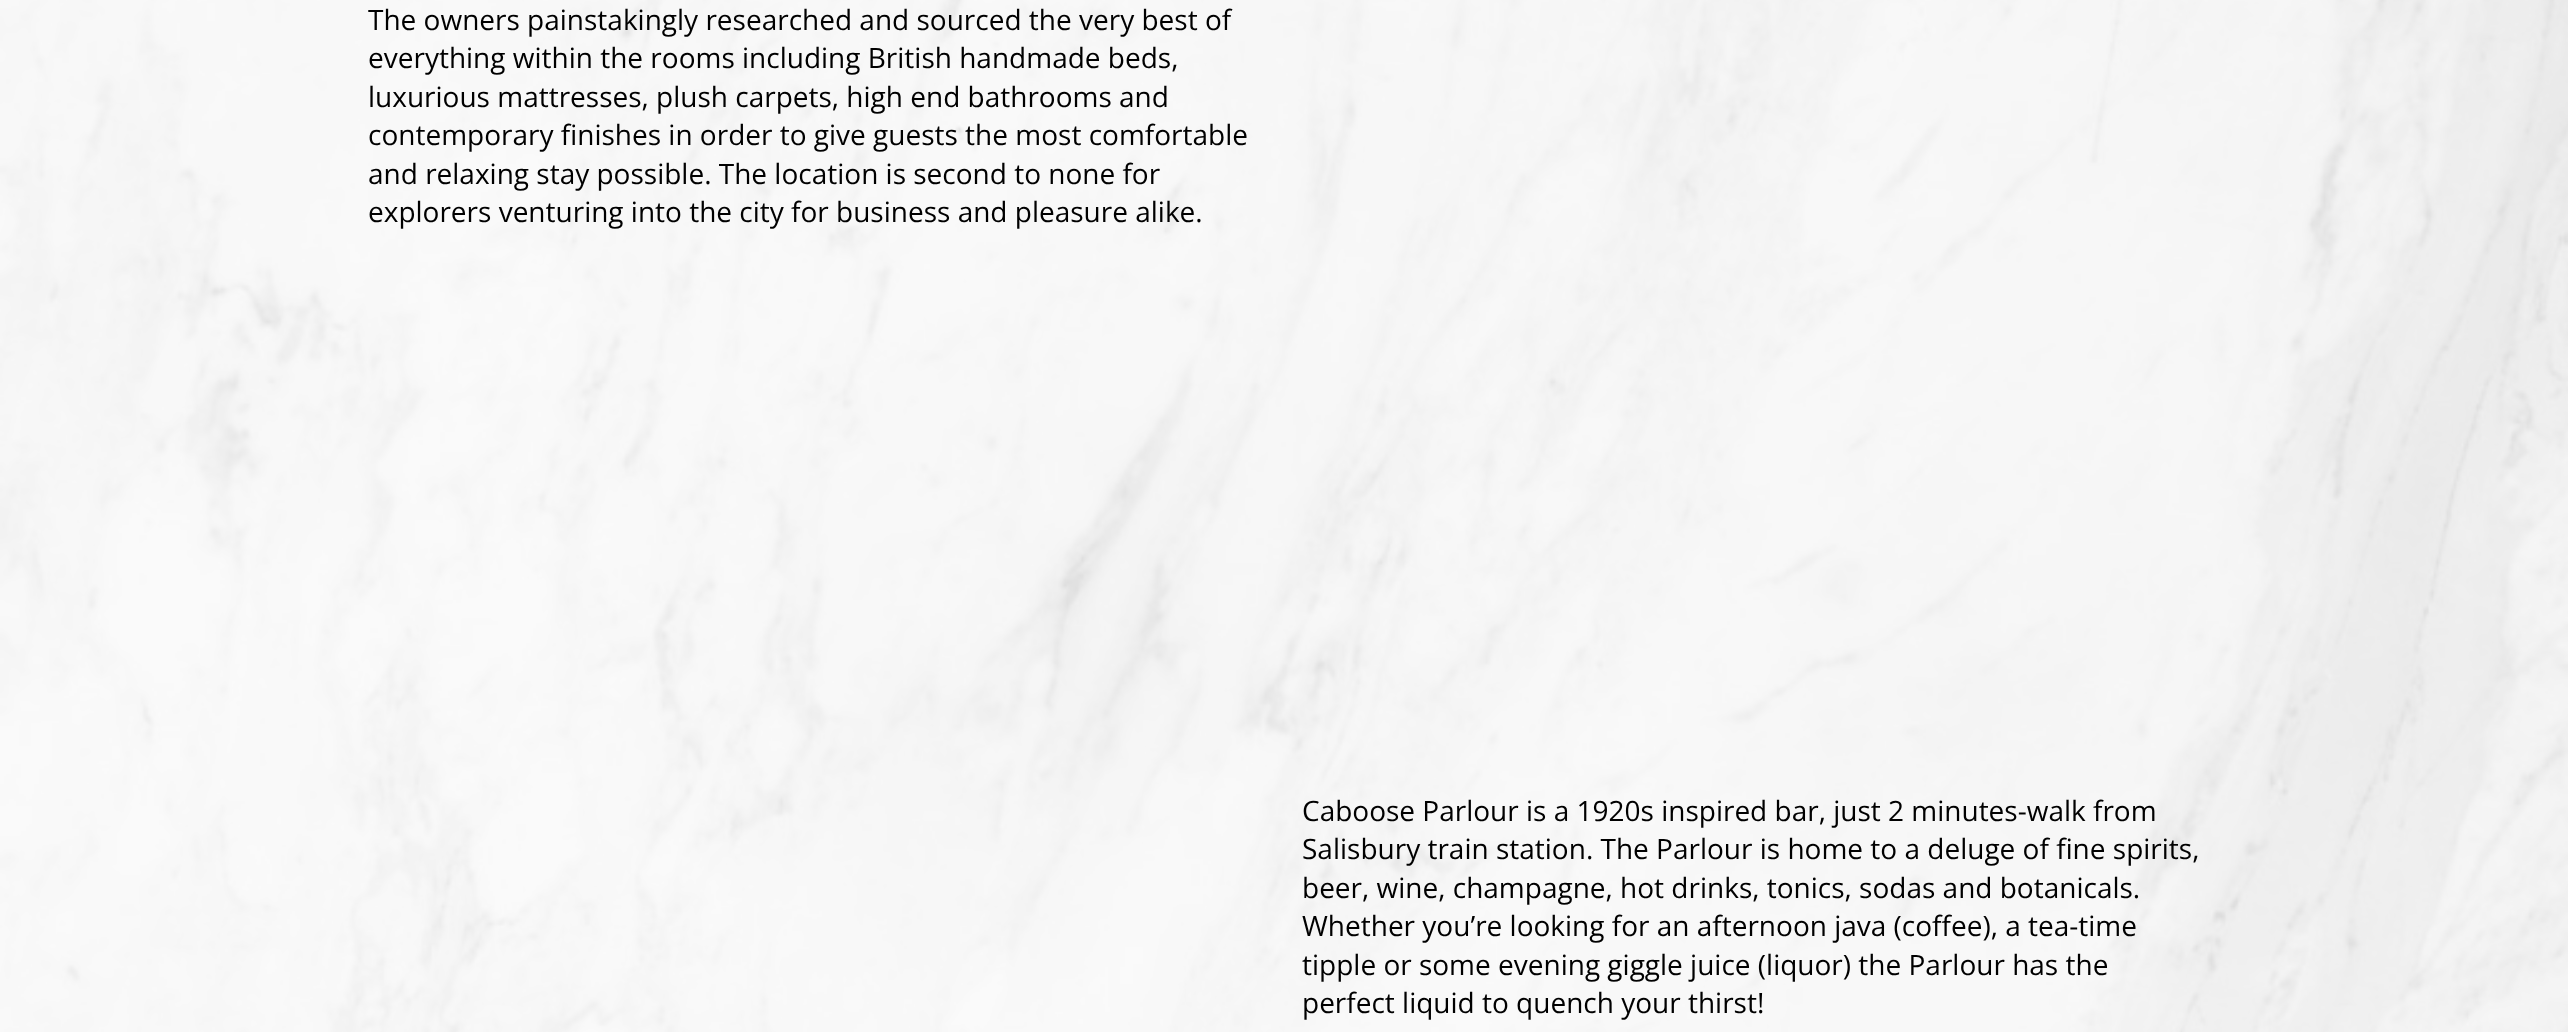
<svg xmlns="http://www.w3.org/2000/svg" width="2568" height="1032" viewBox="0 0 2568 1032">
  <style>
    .t1 { font: 28px Open Sans; fill: #000; }
  </style>
  <rect width="100%" height="100%" fill="#fff"/>
  <image x="0" y="0" width="2568" height="1032" href="images/1.png"/>
  <text x="368" y="30" class="t1">The owners painstakingly researched and sourced the very best of</text>
  <text x="368" y="68" class="t1">everything within the rooms including British handmade beds,</text>
  <text x="368" y="107" class="t1">luxurious mattresses, plush carpets, high end bathrooms and</text>
  <text x="368" y="145" class="t1">contemporary finishes in order to give guests the most comfortable</text>
  <text x="368" y="184" class="t1">and relaxing stay possible. The location is second to none for</text>
  <text x="368" y="222" class="t1">explorers venturing into the city for business and pleasure alike.</text>
  <text x="1302" y="821" class="t1">Caboose Parlour is a 1920s inspired bar, just 2 minutes-walk from</text>
  <text x="1302" y="859" class="t1">Salisbury train station. The Parlour is home to a deluge of fine spirits,</text>
  <text x="1302" y="898" class="t1">beer, wine, champagne, hot drinks, tonics, sodas and botanicals.</text>
  <text x="1302" y="936" class="t1">Whether you’re looking for an afternoon java (coffee), a tea-time</text>
  <text x="1302" y="975" class="t1">tipple or some evening giggle juice (liquor) the Parlour has the</text>
  <text x="1302" y="1013" class="t1">perfect liquid to quench your thirst!</text>
</svg>
